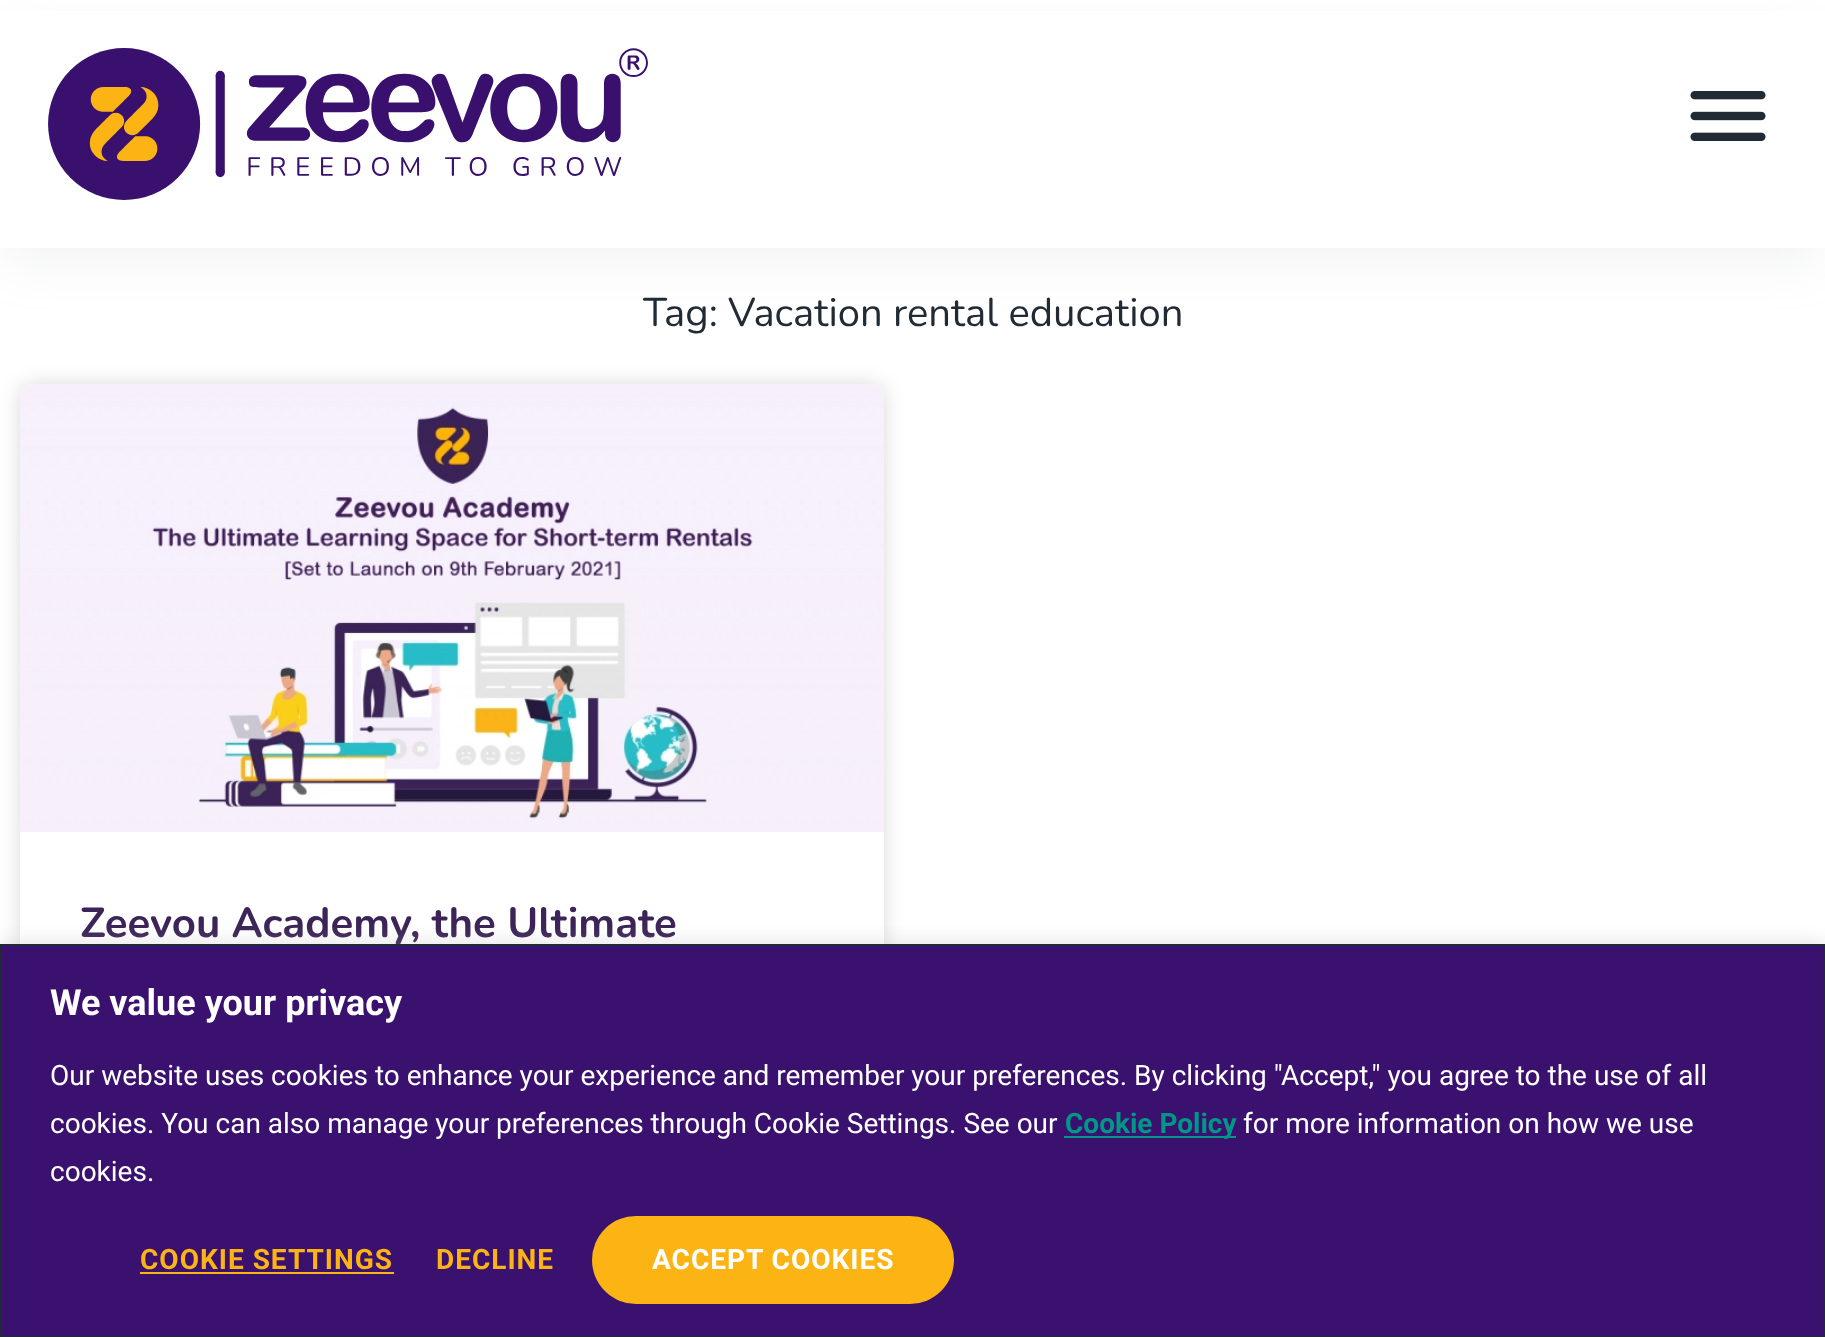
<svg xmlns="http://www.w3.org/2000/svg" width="1825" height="1337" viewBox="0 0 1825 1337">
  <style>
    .t1 { font: 40px Nunito; fill: #212b36; }
    .t2 { font: bold 42px Nunito; fill: #3c2458; }
    .t3 { font: bold 36px Roboto; fill: #fff; }
    .t4 { font: 28px Roboto; fill: #fff; }
    .t5 { font: bold 28px Roboto; fill: #009688; }
    .t6 { font: bold 28px Roboto; letter-spacing: 1px; fill: #fcb414; }
    .t7 { font: bold 28px Roboto; letter-spacing: 1px; fill: #fff; }
  </style>
  <defs>
    <clipPath id="clip1"><rect x="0" y="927" width="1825" height="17"/></clipPath>
  </defs>
  <rect width="100%" height="100%" fill="#fff"/>
  <rect x="8" y="32" width="1810" height="232" fill="#919eab1f" filter="blur(24px)"/>
  <rect x="0" y="11" width="1825" height="237" fill="#fff"/>
  <image x="48" y="48" width="600" height="152" href="images/1.png"/>
  <image x="1690" y="91" width="76" height="50" href="images/2.png"/>
  <text x="643" y="326" class="t1">Tag: Vacation rental education</text>
  <rect x="20" y="384" width="864" height="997" rx="14" fill="#00000026" filter="blur(10px)"/>
  <rect x="20" y="384" width="864" height="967" rx="14" fill="#fff"/>
  <image x="20" y="384" width="864" height="448" href="images/3.png"/>
  <text x="80" y="937" class="t2">Zeevou Academy, the Ultimate</text>
  <rect x="2" y="946" width="1822" height="390" fill="#39106de6"/>
  <g clip-path="url(#clip1)">
    <rect x="0" y="942" width="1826" height="394" fill="#acabab4d" filter="blur(10px)"/>
  </g>
  <rect x="1" y="945" width="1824" height="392" fill="#39106de6" stroke="#212b36" stroke-width="2"/>
  <text x="50" y="1015" class="t3">We value your privacy</text>
  <text x="50" y="1085" class="t4">Our website uses cookies to enhance your experience and remember your preferences. By clicking "Accept," you agree to the use of all</text>
  <text x="50" y="1133" class="t4">cookies. You can also manage your preferences through Cookie Settings. See our</text>
  <rect x="1064" y="1136" width="172" height="2" fill="#009688"/>
  <text x="1065" y="1133" class="t5">Cookie Policy</text>
  <text x="1243" y="1133" class="t4">for more information on how we use</text>
  <text x="50" y="1181" class="t4">cookies.</text>
  <text x="140" y="1269" class="t6">COOKIE SETTINGS</text>
  <rect x="140" y="1272" width="254" height="2" fill="#fcb414"/>
  <text x="436" y="1269" class="t6">DECLINE</text>
  <rect x="592" y="1216" width="362" height="88" rx="44" fill="#fcb414"/>
  <text x="652" y="1269" class="t7">ACCEPT COOKIES</text>
</svg>
